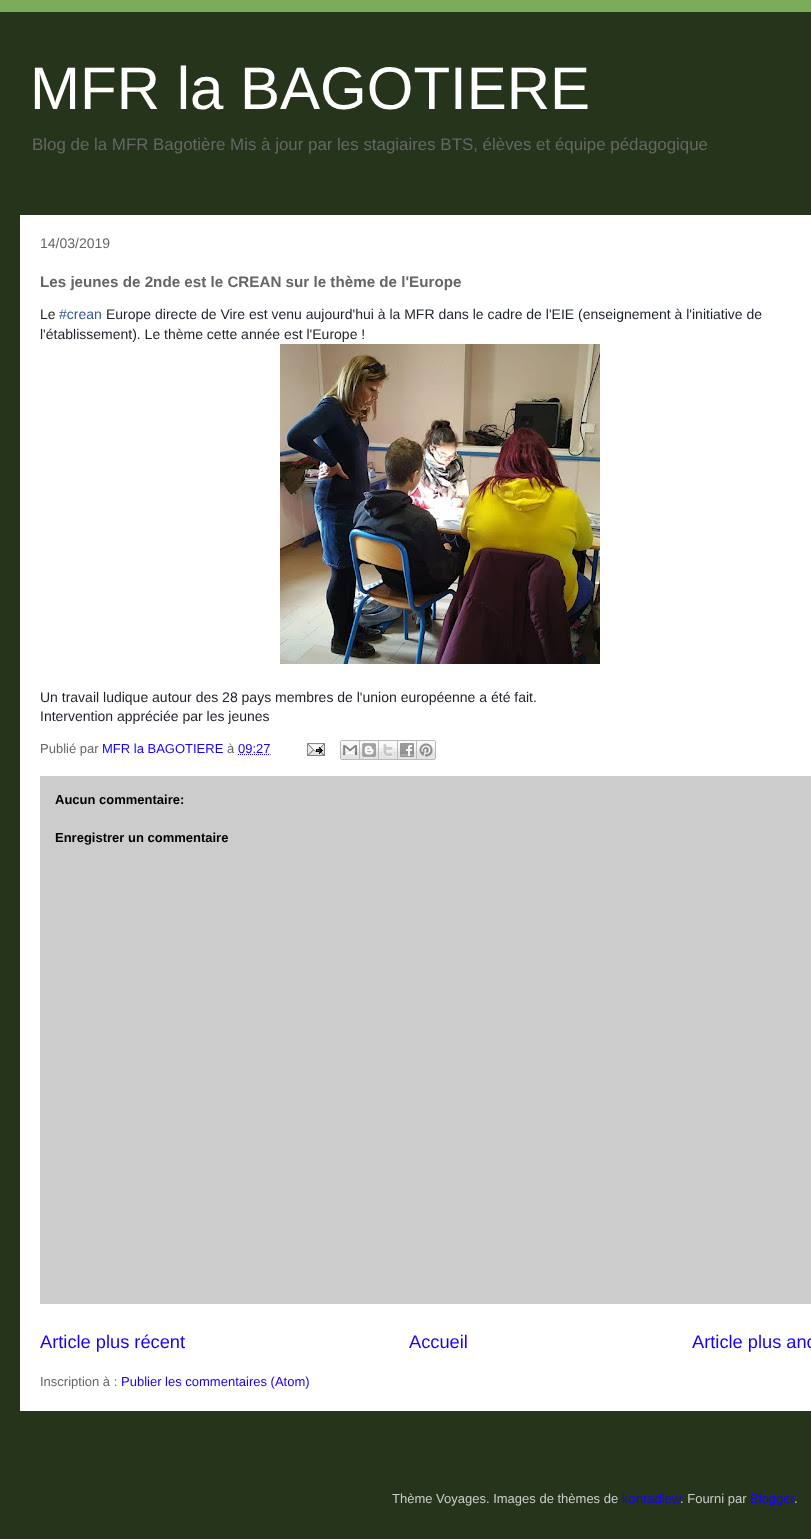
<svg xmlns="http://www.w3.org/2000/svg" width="811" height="1539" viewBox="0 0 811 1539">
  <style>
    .t1 { font: 60px Liberation Sans; fill: #fff; }
    .t2 { font: 16.9px Liberation Sans; fill: #666; }
    .t3 { font: 14px Liberation Sans; fill: #666; }
    .t4 { font: bold 15.2px Liberation Sans; fill: #666; }
    .t5 { font: 14px Liberation Sans; fill: #1d2129; }
    .t6 { font: 14px Liberation Sans; fill: #365899; }
    .t7 { font: 13px Liberation Sans; fill: #666; }
    .t8 { font: 13px Liberation Sans; fill: #1800ff; }
    .t9 { font: bold 13px Liberation Sans; fill: #000; }
    .t10 { font: 18.25px Liberation Sans; fill: #1800ff; }
    .t11 { font: 13px Liberation Sans; fill: #ccc; }
  </style>
  <rect width="100%" height="100%" fill="#7bac5a"/>
  <rect x="0" y="12" width="811" height="1527" fill="#25341b"/>
  <text x="30" y="109" class="t1">MFR la BAGOTIERE</text>
  <text x="32" y="150" class="t2">Blog de la MFR Bagotière Mis à jour par les stagiaires BTS, élèves et équipe pédagogique</text>
  <rect x="20" y="215" width="791" height="1196" fill="#fff"/>
  <text x="40" y="248" class="t3">14/03/2019</text>
  <text x="40" y="287" class="t4">Les jeunes de 2nde est le CREAN sur le thème de l'Europe</text>
  <text x="40" y="319" class="t5">Le</text>
  <text x="59" y="319" class="t6">#crean</text>
  <text x="106" y="319" class="t5">Europe directe de Vire est venu aujourd'hui à la MFR dans le cadre de l'EIE (enseignement à l'initiative de</text>
  <text x="40" y="339" class="t5">l'établissement). Le thème cette année est l'Europe !</text>
  <image x="280" y="344" width="320" height="320" href="images/1.png"/>
  <text x="40" y="702" class="t5">Un travail ludique autour des 28 pays membres de l'union européenne a été fait.</text>
  <text x="40" y="721" class="t5">Intervention appréciée par les jeunes</text>
  <text x="40" y="753" class="t7">Publié par</text>
  <text x="102" y="753" class="t8">MFR la BAGOTIERE</text>
  <text x="227" y="753" class="t7">à</text>
  <text x="238" y="753" class="t8">09:27</text>
  <path d="M238 754.5H270.5" fill="none" stroke="#1800ff" stroke-dasharray="1 1"/>
  <image x="307" y="743" width="18" height="13" href="images/2.png"/>
  <image x="340" y="740" width="20" height="20" href="images/3.png"/>
  <image x="360" y="740" width="19" height="20" href="images/4.png"/>
  <image x="379" y="740" width="19" height="20" href="images/5.png"/>
  <image x="398" y="740" width="19" height="20" href="images/6.png"/>
  <image x="417" y="740" width="19" height="20" href="images/7.png"/>
  <rect x="40" y="776" width="771" height="528" fill="#ccc"/>
  <text x="55" y="804" class="t9">Aucun commentaire:</text>
  <text x="55" y="842" class="t9">Enregistrer un commentaire</text>
  <text x="40" y="1348" class="t10">Article plus récent</text>
  <text x="409" y="1348" class="t10">Accueil</text>
  <text x="692" y="1348" class="t10">Article plus anc</text>
  <text x="40" y="1386" class="t7">Inscription à :</text>
  <text x="121" y="1386" class="t8">Publier les commentaires (Atom)</text>
  <text x="392" y="1503" class="t11">Thème Voyages. Images de thèmes de</text>
  <text x="622" y="1503" class="t8">konradlew</text>
  <text x="680" y="1503" class="t11">. Fourni par</text>
  <text x="750" y="1503" class="t8">Blogger</text>
  <text x="794" y="1503" class="t11">.</text>
</svg>
